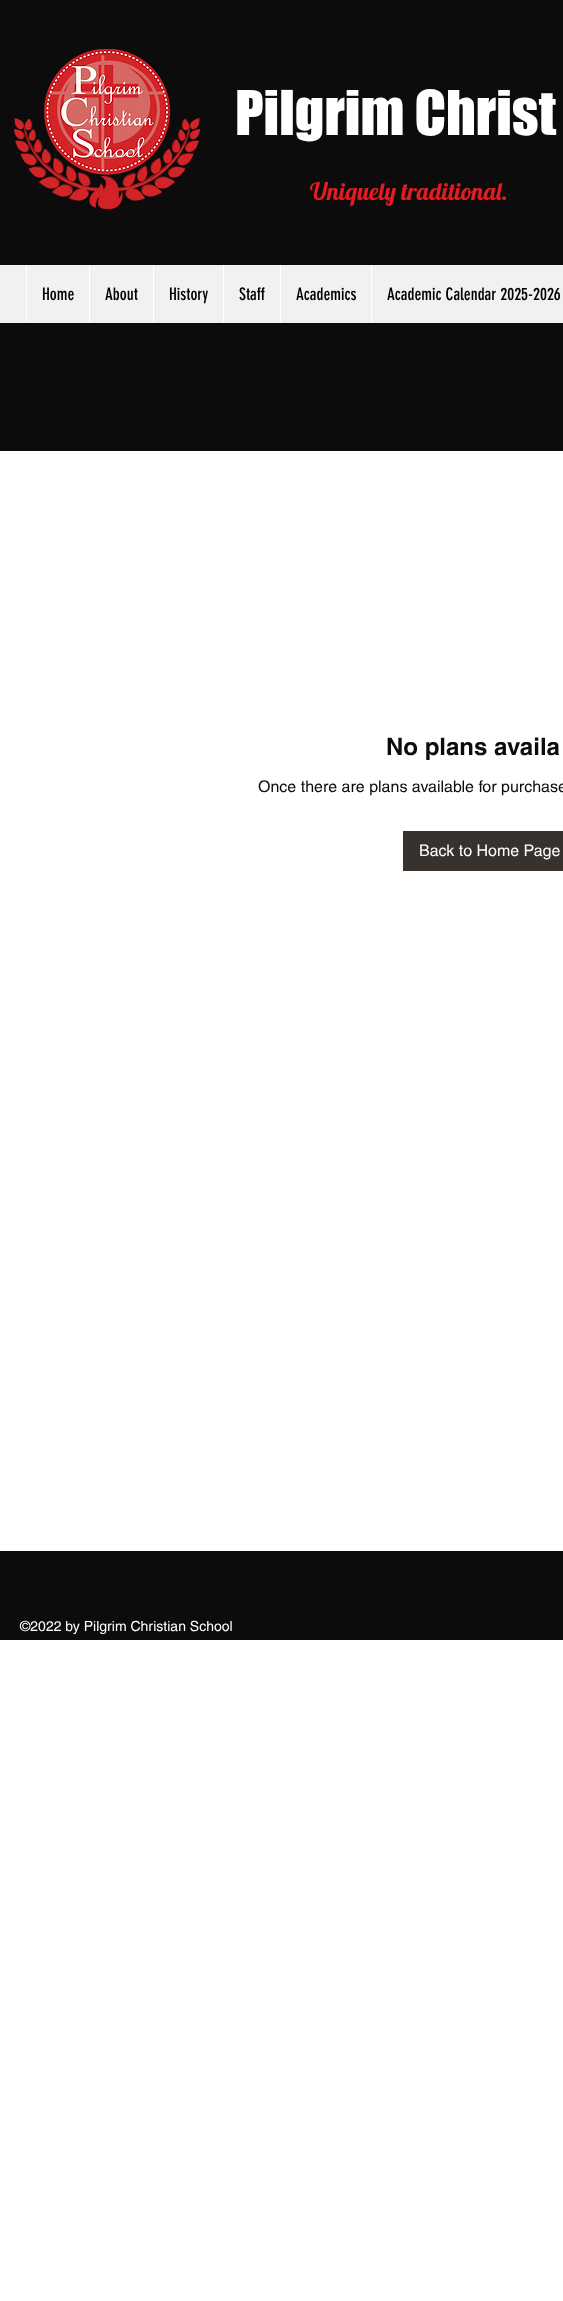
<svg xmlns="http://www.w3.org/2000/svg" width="563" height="2301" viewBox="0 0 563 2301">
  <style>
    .t1 { font: 57px 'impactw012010'; fill: #fff; }
    .t2 { font: 24px Lobster; fill: #e21c21; }
    .t3 { font: 17px 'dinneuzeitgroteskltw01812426'; fill: #000; }
    .t4 { font: bold 24px helvetica; fill: #0c0c0d; }
    .t5 { font: 16px helvetica; fill: #0c0c0d; }
    .t6 { font: 16px helvetica; fill: #fff; }
    .t7 { font: 14px helvetica; fill: #fff; }
  </style>
  <rect width="100%" height="100%" fill="#fff"/>
  <rect x="0" y="0" width="563" height="451" fill="#0c0c0d"/>
  <text x="235" y="135" class="t1">Pilgrim Christ</text>
  <image x="14" y="49" width="186" height="160" href="images/1.png"/>
  <text x="310" y="200" class="t2">Uniquely traditional.</text>
  <rect x="0" y="265" width="563" height="58" fill="#f1f1f1"/>
  <rect x="26" y="265" width="1" height="58" fill="#fff"/>
  <text x="42" y="300" class="t3">Home</text>
  <rect x="89" y="265" width="1" height="58" fill="#fff"/>
  <text x="105" y="300" class="t3">About</text>
  <rect x="153" y="265" width="1" height="58" fill="#fff"/>
  <text x="169" y="300" class="t3">History</text>
  <rect x="223" y="265" width="1" height="58" fill="#fff"/>
  <text x="239" y="300" class="t3">Staff</text>
  <rect x="280" y="265" width="1" height="58" fill="#fff"/>
  <text x="296" y="300" class="t3">Academics</text>
  <rect x="371" y="265" width="1" height="58" fill="#fff"/>
  <text x="387" y="300" class="t3">Academic Calendar 2025-2026</text>
  <text x="386" y="755" class="t4">No plans availa</text>
  <text x="258" y="792" class="t5">Once there are plans available for purchase</text>
  <rect x="403" y="831" width="160" height="40" fill="#37322e"/>
  <text x="419" y="856" class="t6">Back to Home Page</text>
  <rect x="0" y="1551" width="563" height="89" fill="#0c0c0d"/>
  <text x="20" y="1631" class="t7">©2022 by Pilgrim Christian School</text>
</svg>
